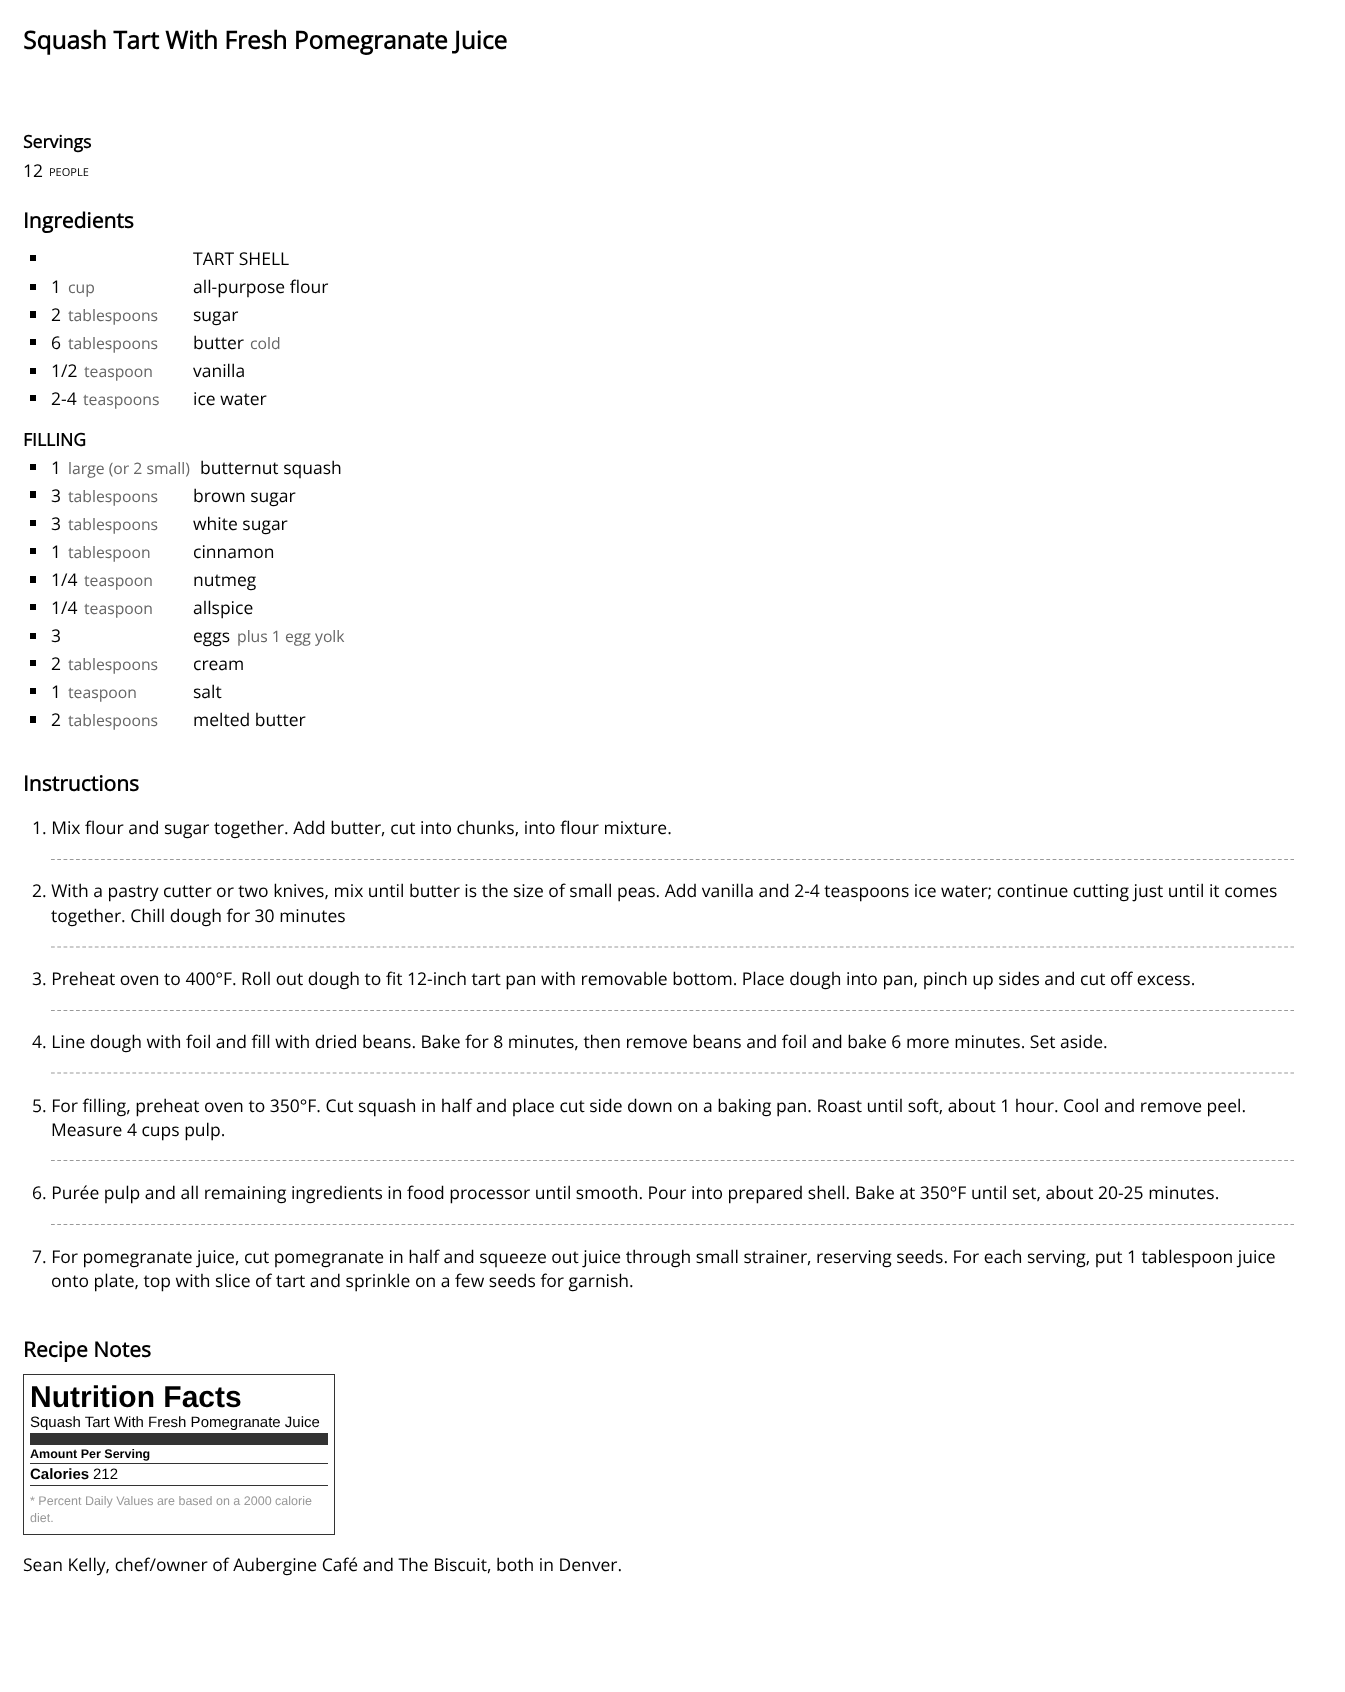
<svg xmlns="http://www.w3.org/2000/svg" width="1345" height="1692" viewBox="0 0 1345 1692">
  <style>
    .t1 { font: bold 24.5px Open Sans; fill: #000; }
    .t2 { font: bold 17.5px Open Sans; fill: #000; }
    .t3 { font: 17.5px Open Sans; fill: #000; }
    .t4 { font: 11px Open Sans; fill: #000; }
    .t5 { font: bold 21px Open Sans; fill: #000; }
    .t6 { font: 15.75px Open Sans; fill: #666; }
    .t7 { font: bold 30px Liberation Sans; fill: #000; }
    .t8 { font: 15px Liberation Sans; fill: #000; }
    .t9 { font: bold 12.5px Liberation Sans; fill: #000; }
    .t10 { font: bold 15px Liberation Sans; fill: #000; }
    .t11 { font: 12.5px Liberation Sans; fill: #999; }
  </style>
  <rect width="100%" height="100%" fill="#fff"/>
  <text x="23" y="49" class="t1">Squash Tart With Fresh Pomegranate Juice</text>
  <text x="23" y="148" class="t2">Servings</text>
  <text x="23" y="177" class="t3">12</text>
  <text x="49" y="176" class="t4">PEOPLE</text>
  <text x="23" y="228" class="t5">Ingredients</text>
  <rect x="30" y="255" width="6" height="6" fill="#000"/>
  <text x="193" y="265" class="t3">TART SHELL</text>
  <rect x="30" y="284" width="6" height="6" fill="#000"/>
  <text x="51" y="293" class="t3">1</text>
  <text x="68" y="293" class="t6">cup</text>
  <text x="193" y="293" class="t3">all-purpose flour</text>
  <rect x="30" y="311" width="6" height="7" fill="#000"/>
  <text x="51" y="321" class="t3">2</text>
  <text x="68" y="321" class="t6">tablespoons</text>
  <text x="193" y="321" class="t3">sugar</text>
  <rect x="30" y="339" width="6" height="6" fill="#000"/>
  <text x="51" y="349" class="t3">6</text>
  <text x="68" y="349" class="t6">tablespoons</text>
  <text x="193" y="349" class="t3">butter</text>
  <text x="250" y="349" class="t6">cold</text>
  <rect x="30" y="368" width="6" height="6" fill="#000"/>
  <text x="51" y="377" class="t3">1/2</text>
  <text x="84" y="377" class="t6">teaspoon</text>
  <text x="193" y="377" class="t3">vanilla</text>
  <rect x="30" y="395" width="6" height="6" fill="#000"/>
  <text x="51" y="405" class="t3">2-4</text>
  <text x="83" y="405" class="t6">teaspoons</text>
  <text x="193" y="405" class="t3">ice water</text>
  <text x="23" y="446" class="t2">FILLING</text>
  <rect x="30" y="464" width="6" height="6" fill="#000"/>
  <text x="51" y="474" class="t3">1</text>
  <text x="68" y="474" class="t6">large (or 2 small)</text>
  <text x="200" y="474" class="t3">butternut squash</text>
  <rect x="30" y="491" width="6" height="7" fill="#000"/>
  <text x="51" y="502" class="t3">3</text>
  <text x="68" y="502" class="t6">tablespoons</text>
  <text x="193" y="502" class="t3">brown sugar</text>
  <rect x="30" y="520" width="6" height="6" fill="#000"/>
  <text x="51" y="530" class="t3">3</text>
  <text x="68" y="530" class="t6">tablespoons</text>
  <text x="193" y="530" class="t3">white sugar</text>
  <rect x="30" y="548" width="6" height="6" fill="#000"/>
  <text x="51" y="558" class="t3">1</text>
  <text x="68" y="558" class="t6">tablespoon</text>
  <text x="193" y="558" class="t3">cinnamon</text>
  <rect x="30" y="576" width="6" height="7" fill="#000"/>
  <text x="51" y="586" class="t3">1/4</text>
  <text x="84" y="586" class="t6">teaspoon</text>
  <text x="193" y="586" class="t3">nutmeg</text>
  <rect x="30" y="604" width="6" height="6" fill="#000"/>
  <text x="51" y="614" class="t3">1/4</text>
  <text x="84" y="614" class="t6">teaspoon</text>
  <text x="193" y="614" class="t3">allspice</text>
  <rect x="30" y="633" width="6" height="6" fill="#000"/>
  <text x="51" y="642" class="t3">3</text>
  <text x="193" y="642" class="t3">eggs</text>
  <text x="237" y="642" class="t6">plus 1 egg yolk</text>
  <rect x="30" y="660" width="6" height="6" fill="#000"/>
  <text x="51" y="670" class="t3">2</text>
  <text x="68" y="670" class="t6">tablespoons</text>
  <text x="193" y="670" class="t3">cream</text>
  <rect x="30" y="688" width="6" height="6" fill="#000"/>
  <text x="51" y="698" class="t3">1</text>
  <text x="68" y="698" class="t6">teaspoon</text>
  <text x="193" y="698" class="t3">salt</text>
  <rect x="30" y="716" width="6" height="7" fill="#000"/>
  <text x="51" y="726" class="t3">2</text>
  <text x="68" y="726" class="t6">tablespoons</text>
  <text x="193" y="726" class="t3">melted butter</text>
  <text x="23" y="791" class="t5">Instructions</text>
  <path d="M51 859.5H1294" fill="none" stroke="#999" stroke-width="1.2" stroke-dasharray="3.75 2.51"/>
  <text x="32" y="834" class="t3">1. Mix flour and sugar together. Add butter, cut into chunks, into flour mixture.</text>
  <path d="M51 947H1294" fill="none" stroke="#999" stroke-width="1.2" stroke-dasharray="3.75 2.51"/>
  <text x="32" y="897" class="t3">2. With a pastry cutter or two knives, mix until butter is the size of small peas. Add vanilla and 2-4 teaspoons ice water; continue cutting just until it comes</text>
  <text x="51" y="922" class="t3">together. Chill dough for 30 minutes</text>
  <path d="M51 1010.5H1294" fill="none" stroke="#999" stroke-width="1.2" stroke-dasharray="3.75 2.51"/>
  <text x="32" y="985" class="t3">3. Preheat oven to 400°F. Roll out dough to fit 12-inch tart pan with removable bottom. Place dough into pan, pinch up sides and cut off excess.</text>
  <path d="M51 1073H1294" fill="none" stroke="#999" stroke-width="1.2" stroke-dasharray="3.75 2.51"/>
  <text x="32" y="1048" class="t3">4. Line dough with foil and fill with dried beans. Bake for 8 minutes, then remove beans and foil and bake 6 more minutes. Set aside.</text>
  <path d="M51 1160.5H1294" fill="none" stroke="#999" stroke-width="1.2" stroke-dasharray="3.75 2.51"/>
  <text x="32" y="1112" class="t3">5. For filling, preheat oven to 350°F. Cut squash in half and place cut side down on a baking pan. Roast until soft, about 1 hour. Cool and remove peel.</text>
  <text x="51" y="1136" class="t3">Measure 4 cups pulp.</text>
  <path d="M51 1224.5H1294" fill="none" stroke="#999" stroke-width="1.2" stroke-dasharray="3.75 2.51"/>
  <text x="32" y="1199" class="t3">6. Purée pulp and all remaining ingredients in food processor until smooth. Pour into prepared shell. Bake at 350°F until set, about 20-25 minutes.</text>
  <text x="32" y="1263" class="t3">7. For pomegranate juice, cut pomegranate in half and squeeze out juice through small strainer, reserving seeds. For each serving, put 1 tablespoon juice</text>
  <text x="51" y="1287" class="t3">onto plate, top with slice of tart and sprinkle on a few seeds for garnish.</text>
  <text x="23" y="1357" class="t5">Recipe Notes</text>
  <rect x="23.5" y="1374.5" width="311" height="160" fill="none" stroke="#333"/>
  <text x="30" y="1407" class="t7">Nutrition Facts</text>
  <text x="30" y="1427" class="t8">Squash Tart With Fresh Pomegranate Juice</text>
  <rect x="30" y="1433" width="298" height="12" fill="#333"/>
  <text x="30" y="1458" class="t9">Amount Per Serving</text>
  <rect x="30" y="1463" width="298" height="1" fill="#333"/>
  <text x="30" y="1479" class="t10">Calories</text>
  <text x="93" y="1479" class="t8">212</text>
  <rect x="30" y="1485" width="298" height="1" fill="#333"/>
  <text x="30" y="1505" class="t11">* Percent Daily Values are based on a 2000 calorie</text>
  <text x="30" y="1522" class="t11">diet.</text>
  <text x="23" y="1571" class="t3">Sean Kelly, chef/owner of Aubergine Café and The Biscuit, both in Denver.</text>
</svg>
